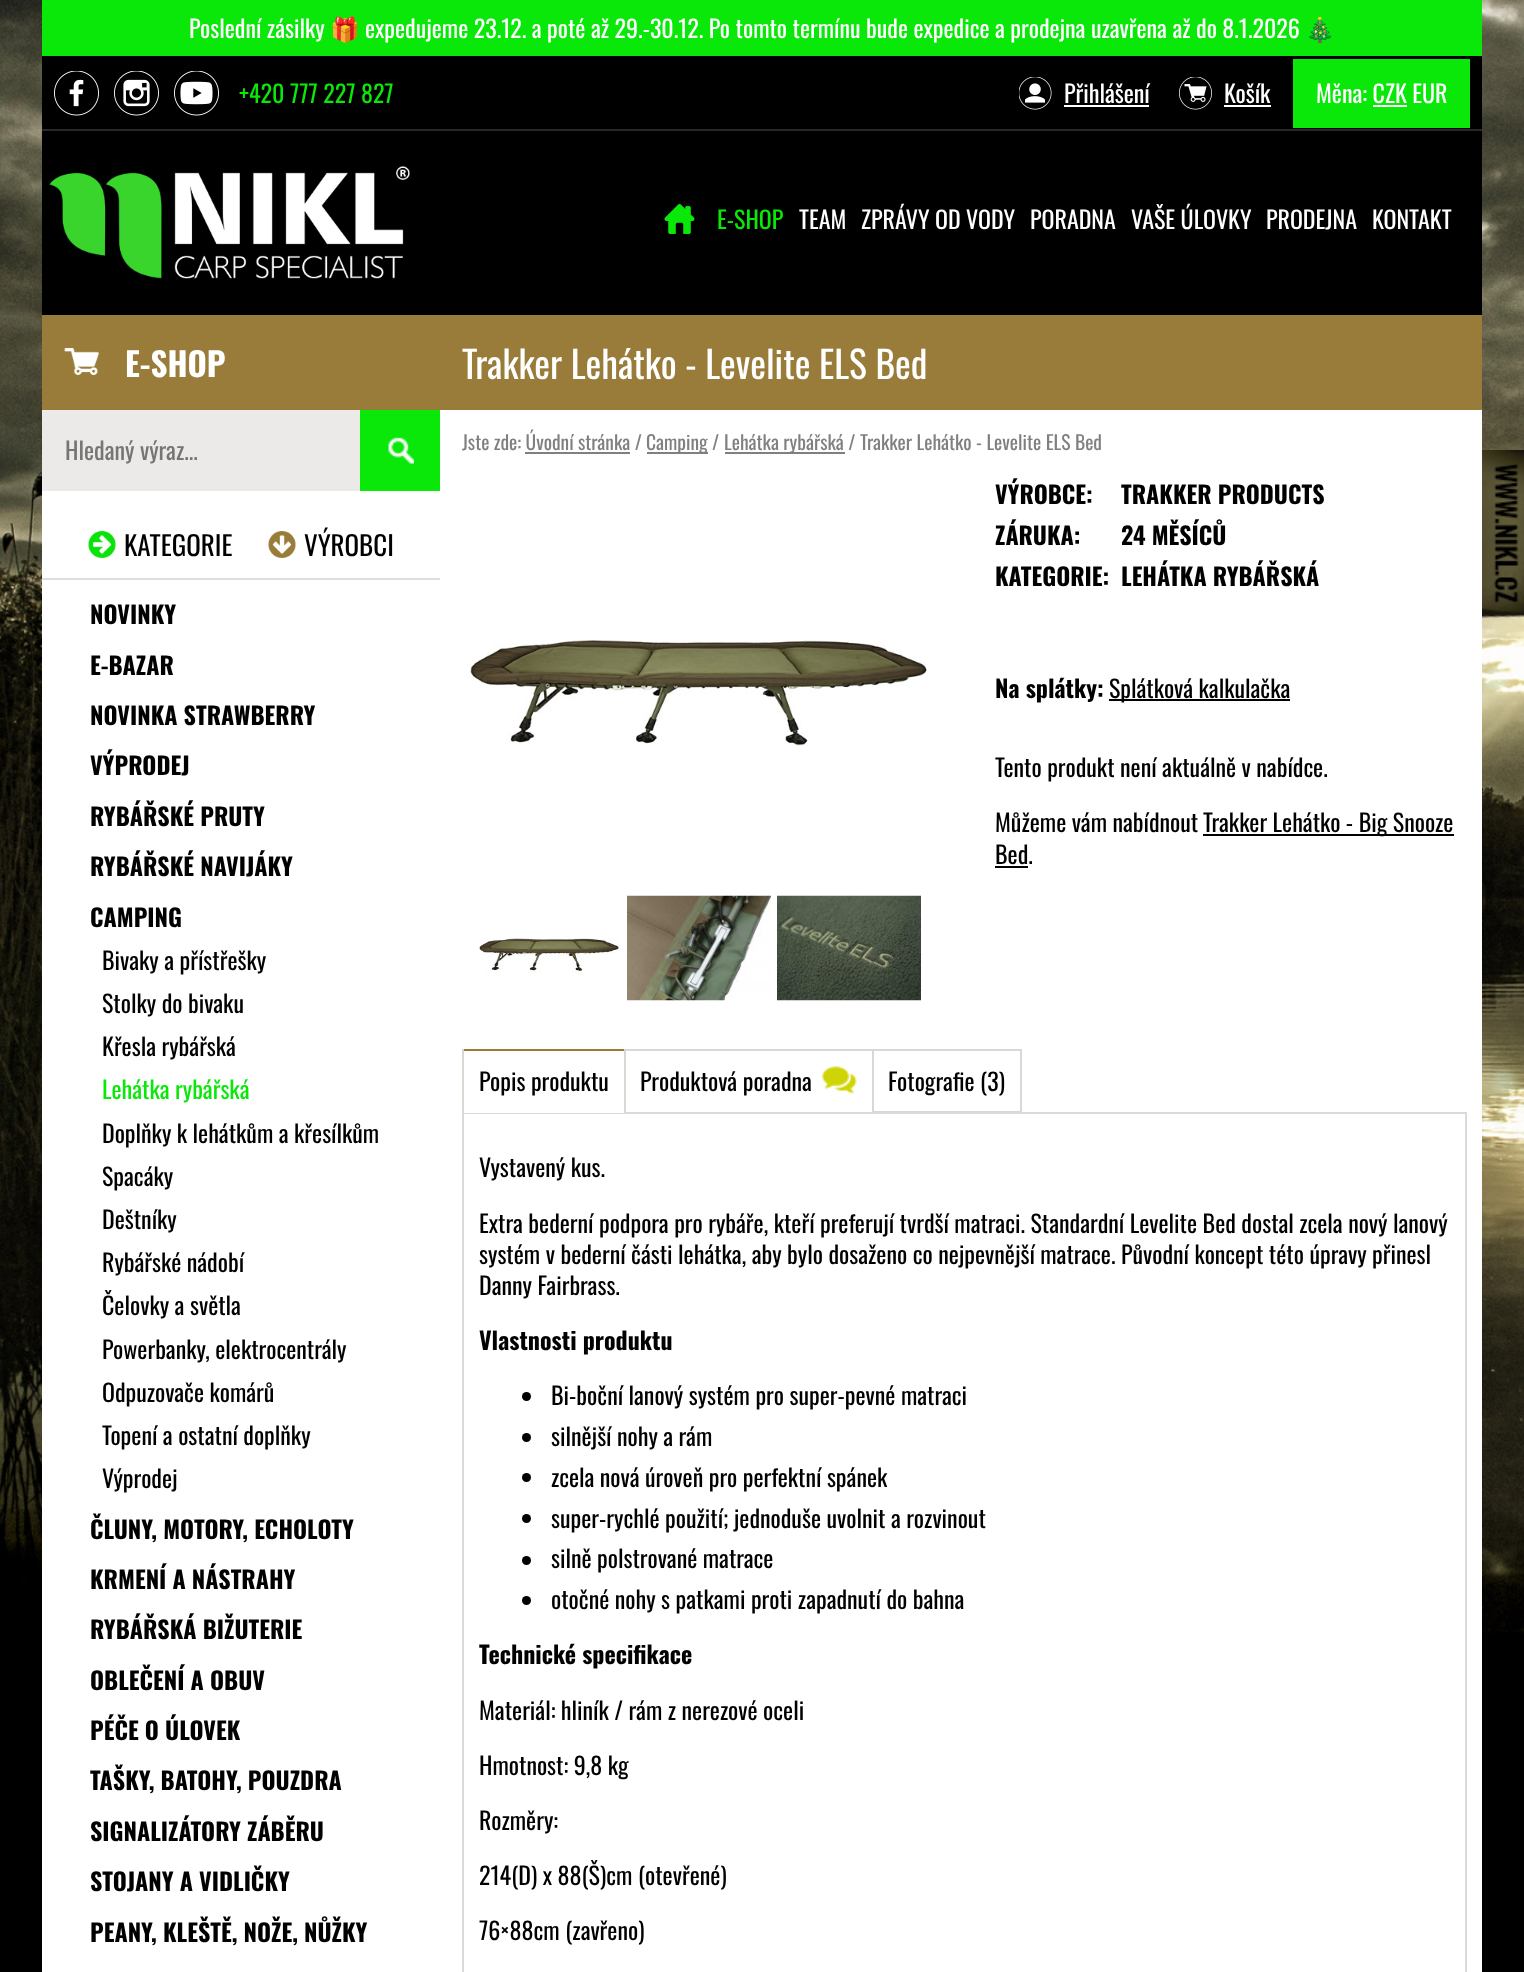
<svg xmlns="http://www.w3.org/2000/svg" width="1524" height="1972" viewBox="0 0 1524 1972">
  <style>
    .t1 { font: 24px Oswald; fill: #fff; }
    .t2 { font: 24px Noto Color Emoji; fill: #fff; }
    .t3 { font: 24px Oswald; fill: #0ae80a; }
    .t4 { font: bold 33px Oswald; fill: #fff; }
    .t5 { font: 37.5px Oswald; fill: #fff; }
    .t6 { font: 24px Oswald; fill: #757575; }
    .t7 { font: 27px Oswald; fill: #000; }
    .t8 { font: bold 24px Oswald; fill: #000; }
    .t9 { font: 24px Oswald; fill: #000; }
    .t10 { font: 19.5px Oswald; fill: #808080; }
  </style>
  <rect width="100%" height="100%" fill="#000"/>
  <image x="0" y="0" width="1524" height="1636" href="images/1.png"/>
  <rect x="42" y="56" width="1440" height="259" fill="#000"/>
  <rect x="42" y="0" width="1440" height="56" fill="#0ae80a"/>
  <text x="189" y="38" class="t1">Poslední zásilky</text>
  <text x="330" y="38" class="t2">🎁</text>
  <text x="365" y="38" class="t1">expedujeme 23.12. a poté až 29.-30.12. Po tomto termínu bude expedice a prodejna uzavřena až do 8.1.2026</text>
  <text x="1305" y="38" class="t2">🎄</text>
  <rect x="42" y="129" width="1440" height="2" fill="#29292b"/>
  <image x="54" y="71" width="45" height="45" href="images/2.png"/>
  <image x="114" y="71" width="45" height="45" href="images/3.png"/>
  <image x="174" y="71" width="45" height="45" href="images/4.png"/>
  <text x="239" y="103" class="t3">+420 777 227 827</text>
  <image x="1019" y="77" width="33" height="33" href="images/5.png"/>
  <text x="1064" y="103" class="t1">Přihlášení</text>
  <rect x="1064" y="105" width="85" height="2" fill="#fff"/>
  <image x="1179" y="77" width="33" height="33" href="images/6.png"/>
  <text x="1224" y="103" class="t1">Košík</text>
  <rect x="1224" y="105" width="47" height="2" fill="#fff"/>
  <rect x="1293" y="59" width="177" height="69" fill="#0ae80a"/>
  <text x="1316" y="103" class="t1">Měna: CZK EUR</text>
  <rect x="1373" y="105" width="34" height="2" fill="#fff"/>
  <image x="49" y="166" width="361" height="113" href="images/7.png"/>
  <image x="664" y="204" width="31" height="30" href="images/8.png"/>
  <text x="717" y="229" class="t3">E-SHOP</text>
  <text x="799" y="229" class="t1">TEAM</text>
  <text x="861" y="229" class="t1">ZPRÁVY OD VODY</text>
  <text x="1030" y="229" class="t1">PORADNA</text>
  <text x="1131" y="229" class="t1">VAŠE ÚLOVKY</text>
  <text x="1266" y="229" class="t1">PRODEJNA</text>
  <text x="1372" y="229" class="t1">KONTAKT</text>
  <rect x="42" y="410" width="1440" height="1562" fill="#fff"/>
  <rect x="42" y="315" width="1440" height="95" fill="#997c39"/>
  <image x="64" y="348" width="35" height="27" href="images/9.png"/>
  <text x="125" y="377" class="t4">E-SHOP</text>
  <text x="462" y="379" class="t5">Trakker Lehátko - Levelite ELS Bed</text>
  <rect x="42" y="410" width="318" height="81" fill="#eceae8"/>
  <text x="65" y="460" class="t6">Hledaný výraz...</text>
  <rect x="360" y="410" width="80" height="81" fill="#0ae80a"/>
  <image x="388" y="437" width="26" height="27" href="images/10.png"/>
  <rect x="42" y="578" width="398" height="2" fill="#ddd"/>
  <image x="88" y="531" width="28" height="27" href="images/11.png"/>
  <text x="124" y="556" class="t7">KATEGORIE</text>
  <image x="268" y="531" width="28" height="27" href="images/12.png"/>
  <text x="304" y="556" class="t7">VÝROBCI</text>
  <text x="90" y="624" class="t8">NOVINKY</text>
  <text x="90" y="675" class="t8">E-BAZAR</text>
  <text x="90" y="725" class="t8">NOVINKA STRAWBERRY</text>
  <text x="90" y="775" class="t8">VÝPRODEJ</text>
  <text x="90" y="826" class="t8">RYBÁŘSKÉ PRUTY</text>
  <text x="90" y="876" class="t8">RYBÁŘSKÉ NAVIJÁKY</text>
  <text x="90" y="927" class="t8">CAMPING</text>
  <text x="102" y="970" class="t9">Bivaky a přístřešky</text>
  <text x="102" y="1013" class="t9">Stolky do bivaku</text>
  <text x="102" y="1056" class="t9">Křesla rybářská</text>
  <text x="102" y="1099" class="t3">Lehátka rybářská</text>
  <text x="102" y="1143" class="t9">Doplňky k lehátkům a křesílkům</text>
  <text x="102" y="1186" class="t9">Spacáky</text>
  <text x="102" y="1229" class="t9">Deštníky</text>
  <text x="102" y="1272" class="t9">Rybářské nádobí</text>
  <text x="102" y="1315" class="t9">Čelovky a světla</text>
  <text x="102" y="1359" class="t9">Powerbanky, elektrocentrály</text>
  <text x="102" y="1402" class="t9">Odpuzovače komárů</text>
  <text x="102" y="1445" class="t9">Topení a ostatní doplňky</text>
  <text x="102" y="1488" class="t9">Výprodej</text>
  <text x="90" y="1539" class="t8">ČLUNY, MOTORY, ECHOLOTY</text>
  <text x="90" y="1589" class="t8">KRMENÍ A NÁSTRAHY</text>
  <text x="90" y="1639" class="t8">RYBÁŘSKÁ BIŽUTERIE</text>
  <text x="90" y="1690" class="t8">OBLEČENÍ A OBUV</text>
  <text x="90" y="1740" class="t8">PÉČE O ÚLOVEK</text>
  <text x="90" y="1790" class="t8">TAŠKY, BATOHY, POUZDRA</text>
  <text x="90" y="1841" class="t8">SIGNALIZÁTORY ZÁBĚRU</text>
  <text x="90" y="1891" class="t8">STOJANY A VIDLIČKY</text>
  <text x="90" y="1942" class="t8">PEANY, KLEŠTĚ, NOŽE, NŮŽKY</text>
  <text x="462" y="450" class="t10">Jste zde: Úvodní stránka /</text>
  <rect x="647" y="452" width="61" height="2" fill="#808080"/>
  <text x="646" y="450" class="t10">Camping /</text>
  <rect x="725" y="452" width="120" height="2" fill="#808080"/>
  <text x="724" y="450" class="t10">Lehátka rybářská / Trakker Lehátko - Levelite ELS Bed</text>
  <rect x="525" y="452" width="105" height="2" fill="#808080"/>
  <image x="469" y="639" width="458" height="107" href="images/13.png"/>
  <image x="479" y="938" width="141" height="35" href="images/14.png"/>
  <image x="627" y="895" width="144" height="106" href="images/15.png"/>
  <image x="777" y="895" width="144" height="106" href="images/16.png"/>
  <text x="995" y="504" class="t8">VÝROBCE:</text>
  <text x="1121" y="504" class="t8">TRAKKER PRODUCTS</text>
  <text x="995" y="545" class="t8">ZÁRUKA:</text>
  <text x="1121" y="545" class="t8">24 MĚSÍCŮ</text>
  <text x="995" y="586" class="t8">KATEGORIE:</text>
  <text x="1121" y="586" class="t8">LEHÁTKA RYBÁŘSKÁ</text>
  <text x="995" y="698" class="t8">Na splátky:</text>
  <rect x="1109" y="699" width="181" height="2" fill="#000"/>
  <text x="1109" y="698" class="t9">Splátková kalkulačka</text>
  <text x="995" y="777" class="t9">Tento produkt není aktuálně v nabídce.</text>
  <text x="995" y="832" class="t9">Můžeme vám nabídnout</text>
  <rect x="1203" y="834" width="251" height="2" fill="#000"/>
  <text x="1203" y="832" class="t9">Trakker Lehátko - Big Snooze</text>
  <text x="995" y="864" class="t9">Bed.</text>
  <rect x="995" y="866" width="33" height="2" fill="#000"/>
  <rect x="462" y="1049" width="162" height="2" fill="#a2783a"/>
  <rect x="873" y="1050" width="148" height="62" fill="none" stroke="#dbd8d3" stroke-width="2"/>
  <rect x="463" y="1113" width="1003" height="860" fill="none" stroke="#dbdada" stroke-width="2"/>
  <rect x="462" y="1112" width="162" height="1" fill="#fff"/>
  <rect x="462" y="1049" width="2" height="64" fill="#dbd8d3"/>
  <text x="479" y="1091" class="t9">Popis produktu</text>
  <image x="822" y="1066" width="35" height="28" href="images/17.png"/>
  <rect x="624" y="1049" width="248" height="2" fill="#dbd8d3"/>
  <rect x="624" y="1049" width="2" height="63" fill="#dbd8d3"/>
  <text x="640" y="1091" class="t9">Produktová poradna</text>
  <text x="888" y="1091" class="t9">Fotografie (3)</text>
  <text x="479" y="1177" class="t9">Vystavený kus.</text>
  <text x="479" y="1233" class="t9">Extra bederní podpora pro rybáře, kteří preferují tvrdší matraci. Standardní Levelite Bed dostal zcela nový lanový</text>
  <text x="479" y="1264" class="t9">systém v bederní části lehátka, aby bylo dosaženo co nejpevnější matrace. Původní koncept této úpravy přinesl</text>
  <text x="479" y="1295" class="t9">Danny Fairbrass.</text>
  <text x="479" y="1350" class="t8">Vlastnosti produktu</text>
  <circle cx="526.5" cy="1396.5" r="4.5" fill="#000"/>
  <text x="551" y="1405" class="t9">Bi-boční lanový systém pro super-pevné matraci</text>
  <circle cx="526.5" cy="1437.5" r="4.5" fill="#000"/>
  <text x="551" y="1446" class="t9">silnější nohy a rám</text>
  <circle cx="526.5" cy="1477.5" r="4.5" fill="#000"/>
  <text x="551" y="1487" class="t9">zcela nová úroveň pro perfektní spánek</text>
  <circle cx="526.5" cy="1518.5" r="4.5" fill="#000"/>
  <text x="551" y="1528" class="t9">super-rychlé použití; jednoduše uvolnit a rozvinout</text>
  <circle cx="526.5" cy="1560.5" r="4.5" fill="#000"/>
  <text x="551" y="1568" class="t9">silně polstrované matrace</text>
  <circle cx="526.5" cy="1600.5" r="4.5" fill="#000"/>
  <text x="551" y="1609" class="t9">otočné nohy s patkami proti zapadnutí do bahna</text>
  <text x="479" y="1664" class="t8">Technické specifikace</text>
  <text x="479" y="1720" class="t9">Materiál: hliník / rám z nerezové oceli</text>
  <text x="479" y="1775" class="t9">Hmotnost: 9,8 kg</text>
  <text x="479" y="1830" class="t9">Rozměry:</text>
  <text x="479" y="1885" class="t9">214(D) x 88(Š)cm (otevřené)</text>
  <text x="479" y="1940" class="t9">76×88cm (zavřeno)</text>
  <image x="1482" y="450" width="42" height="168" href="images/18.png"/>
</svg>
